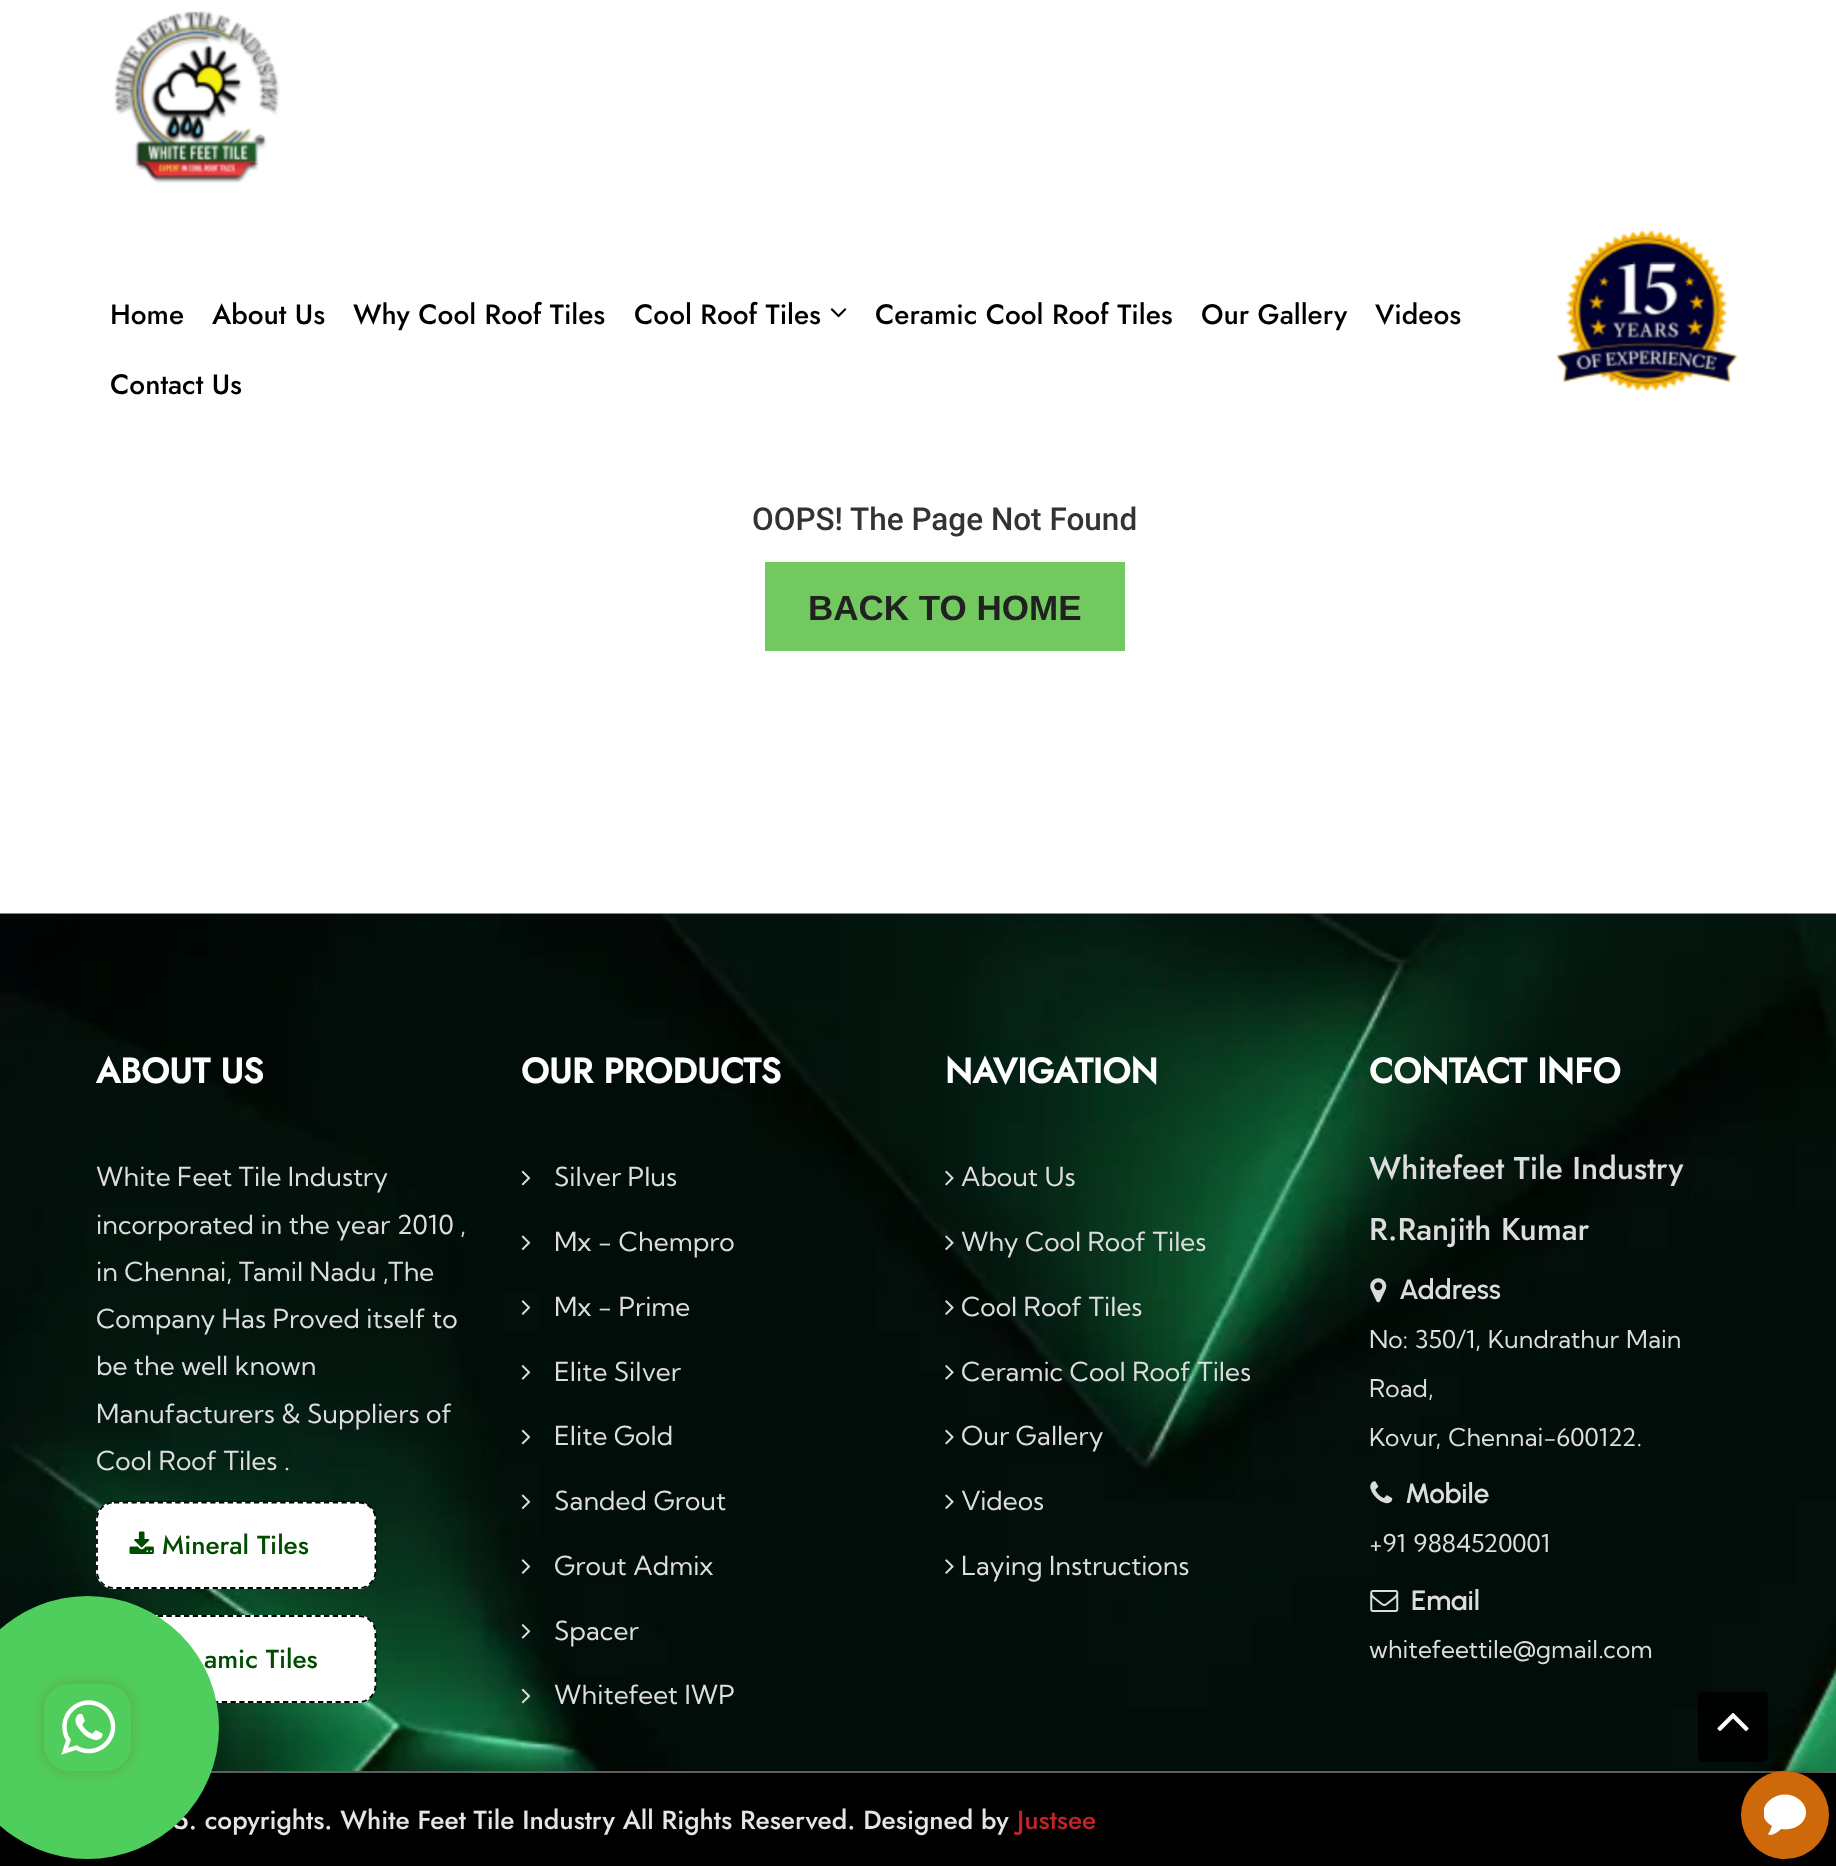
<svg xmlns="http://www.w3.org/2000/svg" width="1836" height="1866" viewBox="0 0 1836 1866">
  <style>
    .t1 { font: 500 26.25px Jost; fill: #004d00; }
    .t2 { font: 500 26.25px Jost; fill: #e5e5e5; }
    .t3 { font: 500 28px Jost; fill: #000; }
    .t4 { font: 500 31.5px Roboto; fill: #333; }
    .t5 { font: bold 35px Liberation Sans; fill: #212121; }
    .t6 { font: bold 35px Jost; fill: #fff; }
    .t7 { font: 26.25px Kumbh Sans; fill: #ddd; }
    .t8 { font: 500 31.5px Jost; fill: #ddd; }
    .t9 { font: 600 28px Urbanist; fill: #ddd; }
    .t10 { font: 24.5px Kumbh Sans; fill: #ddd; }
    .t11 { font: 500 26.25px Jost; fill: #c02427; }
  </style>
  <defs>
    <clipPath id="clip1"><path d="M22 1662H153V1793H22ZM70 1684H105C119.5 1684 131 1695.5 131 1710V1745C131 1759.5 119.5 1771 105 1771H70C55.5 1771 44 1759.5 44 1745V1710C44 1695.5 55.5 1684 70 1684Z" clip-rule="evenodd"/></clipPath>
    <clipPath id="clip2"><rect x="1764" y="1794" width="44" height="44"/></clipPath>
  </defs>
  <rect width="100%" height="100%" fill="#fff"/>
  <image x="0" y="913" width="1836" height="858" href="images/5.png"/>
  <rect x="96" y="1615" width="280" height="88" rx="18" fill="#fff"/>
  <path d="M114 1616H359C368 1616 375.5 1623.5 375.5 1633V1685C375.5 1694.5 368 1702 359 1702H114C104.5 1702 97 1694.5 97 1685V1633C97 1623.5 104.5 1616 114 1616Z" fill="none" stroke="#000" stroke-width="1.8" stroke-dasharray="5.25 3.5"/>
  <text x="204" y="1668" class="t1">amic Tiles</text>
  <rect x="0" y="1773" width="1836" height="93" fill="#000"/>
  <rect x="210" y="1771" width="1626" height="2" fill="#5e5e5e"/>
  <text x="173" y="1829" class="t2">5. copyrights. White Feet Tile Industry All Rights Reserved. Designed by</text>
  <circle cx="87.5" cy="1727.5" r="131.5" fill="#4fce5d"/>
  <g clip-path="url(#clip1)">
    <rect x="44" y="1684" width="87" height="87" rx="26" fill="#744c074d" filter="blur(7px)"/>
  </g>
  <image x="61" y="1700" width="55" height="55" href="images/1.png"/>
  <image x="114" y="10" width="166" height="173" href="images/2.png"/>
  <text x="110" y="324" class="t3">Home</text>
  <text x="212" y="324" class="t3">About Us</text>
  <text x="353" y="324" class="t3">Why Cool Roof Tiles</text>
  <text x="634" y="324" class="t3">Cool Roof Tiles</text>
  <image x="830" y="308" width="17" height="10" href="images/3.png"/>
  <text x="875" y="324" class="t3">Ceramic Cool Roof Tiles</text>
  <text x="1201" y="324" class="t3">Our Gallery</text>
  <text x="1375" y="324" class="t3">Videos</text>
  <text x="110" y="394" class="t3">Contact Us</text>
  <image x="1555" y="230" width="183" height="162" href="images/4.png"/>
  <text x="752" y="530" class="t4">OOPS! The Page Not Found</text>
  <rect x="765" y="562" width="360" height="89" fill="#71c95f"/>
  <text x="808" y="620" class="t5">BACK TO HOME</text>
  <text x="96" y="1083" class="t6">ABOUT US</text>
  <text x="96" y="1186" class="t7">White Feet Tile Industry</text>
  <text x="96" y="1234" class="t7">incorporated in the year 2010 ,</text>
  <text x="96" y="1281" class="t7">in Chennai, Tamil Nadu ,The</text>
  <text x="96" y="1328" class="t7">Company Has Proved itself to</text>
  <text x="96" y="1375" class="t7">be the well known</text>
  <text x="96" y="1423" class="t7">Manufacturers &amp; Suppliers of</text>
  <text x="96" y="1470" class="t7">Cool Roof Tiles .</text>
  <rect x="96" y="1502" width="280" height="87" rx="18" fill="#fff"/>
  <path d="M114 1502.5H359C368 1502.5 375.5 1510 375.5 1519V1571.5C375.5 1580.5 368 1588 359 1588H114C104.5 1588 97 1580.5 97 1571.5V1519C97 1510 104.5 1502.5 114 1502.5Z" fill="none" stroke="#000" stroke-width="1.8" stroke-dasharray="5.25 3.5"/>
  <image x="129" y="1531" width="25" height="23" href="images/6.png"/>
  <text x="162" y="1554" class="t1">Mineral Tiles</text>
  <text x="521" y="1083" class="t6">OUR PRODUCTS</text>
  <image x="521" y="1170" width="10" height="16" href="images/7.png"/>
  <text x="554" y="1186" class="t7">Silver Plus</text>
  <image x="521" y="1235" width="10" height="16" href="images/8.png"/>
  <text x="554" y="1251" class="t7">Mx - Chempro</text>
  <image x="521" y="1300" width="10" height="15" href="images/9.png"/>
  <text x="554" y="1316" class="t7">Mx - Prime</text>
  <image x="521" y="1365" width="10" height="15" href="images/10.png"/>
  <text x="554" y="1381" class="t7">Elite Silver</text>
  <image x="521" y="1429" width="10" height="16" href="images/7.png"/>
  <text x="554" y="1445" class="t7">Elite Gold</text>
  <image x="521" y="1494" width="10" height="16" href="images/11.png"/>
  <text x="554" y="1510" class="t7">Sanded Grout</text>
  <image x="521" y="1559" width="10" height="15" href="images/12.png"/>
  <text x="554" y="1575" class="t7">Grout Admix</text>
  <image x="521" y="1624" width="10" height="15" href="images/13.png"/>
  <text x="554" y="1640" class="t7">Spacer</text>
  <image x="521" y="1688" width="10" height="16" href="images/14.png"/>
  <text x="554" y="1704" class="t7">Whitefeet IWP</text>
  <text x="945" y="1083" class="t6">NAVIGATION</text>
  <image x="945" y="1170" width="9" height="16" href="images/15.png"/>
  <text x="961" y="1186" class="t7">About Us</text>
  <image x="945" y="1235" width="9" height="16" href="images/16.png"/>
  <text x="961" y="1251" class="t7">Why Cool Roof Tiles</text>
  <image x="945" y="1300" width="9" height="15" href="images/17.png"/>
  <text x="961" y="1316" class="t7">Cool Roof Tiles</text>
  <image x="945" y="1365" width="9" height="15" href="images/18.png"/>
  <text x="961" y="1381" class="t7">Ceramic Cool Roof Tiles</text>
  <image x="945" y="1429" width="9" height="16" href="images/19.png"/>
  <text x="961" y="1445" class="t7">Our Gallery</text>
  <image x="945" y="1494" width="9" height="16" href="images/20.png"/>
  <text x="961" y="1510" class="t7">Videos</text>
  <image x="945" y="1559" width="9" height="15" href="images/21.png"/>
  <text x="961" y="1575" class="t7">Laying Instructions</text>
  <text x="1369" y="1083" class="t6">CONTACT INFO</text>
  <text x="1369" y="1179" class="t8">Whitefeet Tile Industry</text>
  <text x="1369" y="1240" class="t8">R.Ranjith Kumar</text>
  <image x="1370" y="1278" width="17" height="25" href="images/22.png"/>
  <text x="1399" y="1299" class="t9">Address</text>
  <text x="1369" y="1348" word-spacing="1" class="t10">No: 350/1, Kundrathur Main</text>
  <text x="1369" y="1397" class="t10">Road,</text>
  <text x="1369" y="1446" word-spacing="1" class="t10">Kovur, Chennai-600122.</text>
  <image x="1370" y="1481" width="23" height="23" href="images/23.png"/>
  <text x="1405" y="1503" class="t9">Mobile</text>
  <text x="1369" y="1552" word-spacing="2" class="t10">+91 9884520001</text>
  <image x="1370" y="1590" width="29" height="22" href="images/24.png"/>
  <text x="1411" y="1610" class="t9">Email</text>
  <text x="1369" y="1658" class="t10">whitefeettile@gmail.com</text>
  <rect x="1698" y="1692" width="70" height="70" rx="5" fill="#000000e6"/>
  <image x="1717" y="1713" width="32" height="18" href="images/25.png"/>
  <text x="1017" y="1829" class="t11">Justsee</text>
  <rect x="1734" y="1764" width="102" height="102" rx="51" fill="#00000029" filter="blur(7px)"/>
  <circle cx="1785" cy="1815" r="44" fill="#cd690a"/>
  <g clip-path="url(#clip2)">
    <path d="M1806 1812C1806 1807 1803 1803 1800 1800C1778 1782 1748 1812 1772 1826L1770 1831C1769 1833 1766 1835 1771 1835C1775 1834 1778 1832 1781 1829C1792 1831 1806 1825 1806 1812Z" fill="#fff"/>
  </g>
</svg>
